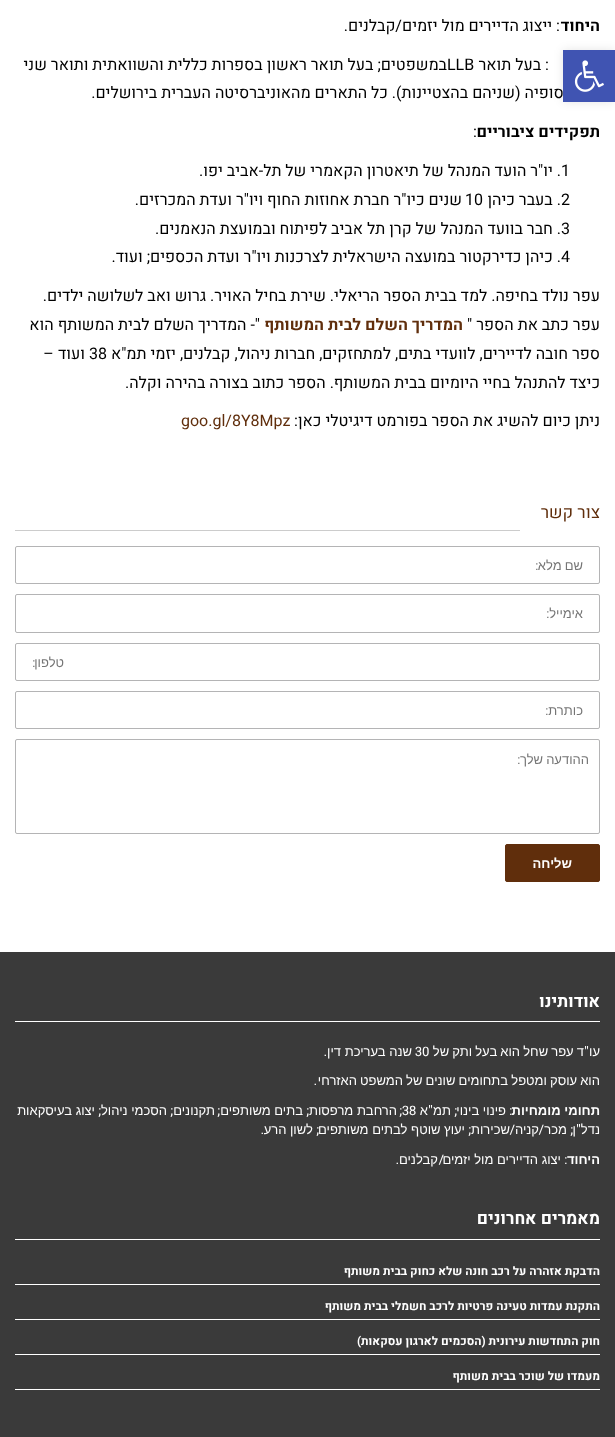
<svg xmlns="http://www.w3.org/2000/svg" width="615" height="1437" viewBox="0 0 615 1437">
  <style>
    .t1 { font: bold 16px Heebo; direction: rtl; fill: #000; }
    .t2 { font: 16px Heebo; direction: rtl; fill: #000; }
    .t3 { font: 16px Heebo; fill: #000; }
    .t4 { font: bold 16px Heebo; direction: rtl; fill: #602e0c; }
    .t5 { font: 16px Heebo; fill: #602e0c; }
    .t6 { font: 17px Heebo; direction: rtl; fill: #602e0c; }
    .t7 { font: 13px Liberation Sans; direction: rtl; fill: #757575; }
    .t8 { font: 13px Roboto Slab; direction: rtl; fill: #757575; }
    .t9 { font: bold 13px Liberation Sans; direction: rtl; fill: #fff; }
    .t10 { font: bold 17px Heebo; direction: rtl; fill: #fff; }
    .t11 { font: 13px Liberation Sans; direction: rtl; fill: #fff; }
    .t12 { font: 13px Roboto Slab; fill: #fff; }
    .t13 { font: 13px Roboto Slab; direction: rtl; fill: #fff; }
    .t14 { font: bold 11.7px Heebo; direction: rtl; fill: #fff; }
  </style>
  <rect width="100%" height="100%" fill="#fff"/>
  <text x="600" y="31" class="t1">היחוד</text>
  <text x="560" y="31" class="t2">: ייצוג הדיירים מול יזמים/קבלנים.</text>
  <text x="549" y="70" class="t2">: בעל תואר</text>
  <text x="447" y="70" class="t3">LLB</text>
  <text x="447" y="70" class="t2"> במשפטים; בעל תואר ראשון בספרות כללית והשוואתית ותואר שני</text>
  <text x="600" y="98" class="t2">בפילוסופיה (שניהם בהצטיינות). כל התארים מהאוניברסיטה העברית בירושלים.</text>
  <text x="600" y="137" class="t1">תפקידים ציבוריים</text>
  <text x="473" y="137" class="t3">:</text>
  <text x="561" y="176" class="t3">1</text>
  <text x="561" y="176" class="t2">. יו"ר הועד המנהל של תיאטרון הקאמרי של תל-אביב יפו.</text>
  <text x="561" y="205" class="t3">2</text>
  <text x="561" y="205" class="t2">. בעבר כיהן</text>
  <text x="465" y="205" class="t3">10</text>
  <text x="462" y="205" class="t2">שנים כיו"ר חברת אחוזות החוף ויו"ר ועדת המכרזים.</text>
  <text x="561" y="234" class="t3">3</text>
  <text x="561" y="234" class="t2">. חבר בוועד המנהל של קרן תל אביב לפיתוח ובמועצת הנאמנים.</text>
  <text x="561" y="262" class="t3">4</text>
  <text x="561" y="262" class="t2">. כיהן כדירקטור במועצה הישראלית לצרכנות ויו"ר ועדת הכספים; ועוד.</text>
  <text x="600" y="301" class="t2">עפר נולד בחיפה. למד בבית הספר הריאלי. שירת בחיל האויר. גרוש ואב לשלושה ילדים.</text>
  <text x="600" y="330" class="t2">עפר כתב את הספר "</text>
  <text x="463" y="330" class="t4">המדריך השלם לבית המשותף</text>
  <text x="260" y="330" class="t2">"- המדריך השלם לבית המשותף הוא</text>
  <text x="600" y="359" class="t2">ספר חובה לדיירים, לוועדי בתים, למתחזקים, חברות ניהול, קבלנים, יזמי תמ"א</text>
  <text x="89" y="359" class="t3">38</text>
  <text x="85" y="359" class="t2">ועוד –</text>
  <text x="600" y="388" class="t2">כיצד להתנהל בחיי היומיום בבית המשותף. הספר כתוב בצורה בהירה וקלה.</text>
  <text x="600" y="426" class="t2">ניתן כיום להשיג את הספר בפורמט דיגיטלי כאן:</text>
  <text x="181" y="426" class="t5">goo.gl/8Y8Mpz</text>
  <rect x="15" y="530" width="505" height="1" fill="#ccc"/>
  <text x="600" y="518" class="t6">צור קשר</text>
  <rect x="15.5" y="546.5" width="584" height="37" rx="1.5" fill="none" stroke="#b4b4b5"/>
  <text x="583" y="570" word-spacing="-0.5" class="t7">שם מלא</text>
  <text x="538" y="570" class="t8">:</text>
  <rect x="15.5" y="594.5" width="584" height="38" rx="1.5" fill="none" stroke="#b4b4b5"/>
  <text x="583" y="618" class="t7">אימייל</text>
  <text x="549" y="618" class="t8">:</text>
  <rect x="15.5" y="643.5" width="584" height="37" rx="1.5" fill="none" stroke="#b4b4b5"/>
  <text x="64" y="667" class="t7">טלפון</text>
  <text x="35" y="667" class="t8">:</text>
  <rect x="15.5" y="691.5" width="584" height="37" rx="1.5" fill="none" stroke="#b4b4b5"/>
  <text x="583" y="715" class="t7">כותרת</text>
  <text x="548" y="715" class="t8">:</text>
  <rect x="15.5" y="739.5" width="584" height="94" rx="1.5" fill="none" stroke="#b4b4b5"/>
  <text x="589" y="764" word-spacing="-0.5" class="t7">ההודעה שלך</text>
  <text x="520" y="764" class="t8">:</text>
  <rect x="505.5" y="844.5" width="94" height="37" rx="1.5" fill="#602e0c" stroke="#602e0c"/>
  <text x="572" y="868" class="t9">שליחה</text>
  <rect x="0" y="952" width="615" height="485" fill="#3a3a3a"/>
  <rect x="15" y="1021" width="585" height="1" fill="#fff"/>
  <text x="600" y="1007" class="t10">אודותינו</text>
  <text x="584" y="1056" word-spacing="-0.5" class="t11">ד עפר שחל הוא בעל ותק של</text>
  <text x="415" y="1056" class="t12">30</text>
  <text x="600" y="1056" class="t11">עו</text>
  <text x="589" y="1056" class="t13">"</text>
  <text x="412" y="1056" class="t11">שנה בעריכת דין</text>
  <text x="327" y="1056" class="t13">.</text>
  <text x="600" y="1085" word-spacing="-0.5" class="t11">הוא עוסק ומטפל בתחומים שונים של המשפט האזרחי</text>
  <text x="317" y="1085" class="t13">.</text>
  <text x="600" y="1115" class="t9">תחומי מומחיות</text>
  <text x="512" y="1115" class="t13">:</text>
  <text x="506" y="1115" class="t11">פינוי בינוי</text>
  <text x="457" y="1115" class="t13">;</text>
  <text x="451" y="1115" class="t11">תמ</text>
  <text x="433" y="1115" class="t13">"</text>
  <text x="428" y="1115" class="t11">א</text>
  <text x="402" y="1115" class="t12">38</text>
  <text x="402" y="1115" class="t13">;</text>
  <text x="397" y="1115" class="t11">הרחבת מרפסות</text>
  <text x="309" y="1115" class="t13">;</text>
  <text x="303" y="1115" class="t11">בתים משותפים</text>
  <text x="220" y="1115" class="t13">;</text>
  <text x="215" y="1115" class="t11">תקנונים</text>
  <text x="173" y="1115" class="t13">;</text>
  <text x="167" y="1115" class="t11">הסכמי ניהול</text>
  <text x="101" y="1115" class="t13">;</text>
  <text x="95" y="1115" class="t11">יצוג בעיסקאות</text>
  <text x="600" y="1134" class="t11">נדל</text>
  <text x="581" y="1134" class="t13">"</text>
  <text x="576" y="1134" class="t11">ן</text>
  <text x="573" y="1134" class="t13">;</text>
  <text x="567" y="1134" class="t11">מכר</text>
  <text x="539" y="1134" class="t11">קניה</text>
  <text x="544" y="1134" class="t13">/</text>
  <text x="510" y="1134" class="t11">שכירות</text>
  <text x="515" y="1134" class="t13">/</text>
  <text x="471" y="1134" class="t13">;</text>
  <text x="465" y="1134" class="t11">יעוץ שוטף לבתים משותפים</text>
  <text x="319" y="1134" class="t13">;</text>
  <text x="313" y="1134" class="t11">לשון הרע</text>
  <text x="264" y="1134" class="t13">.</text>
  <text x="600" y="1164" class="t9">היחוד</text>
  <text x="567" y="1164" class="t13">:</text>
  <text x="561" y="1164" class="t11">יצוג הדיירים מול יזמים</text>
  <text x="444" y="1164" class="t13">/</text>
  <text x="438" y="1164" class="t11">קבלנים</text>
  <text x="399" y="1164" class="t13">.</text>
  <rect x="15" y="1239" width="585" height="1" fill="#fff"/>
  <text x="600" y="1224" class="t10">מאמרים אחרונים</text>
  <text x="600" y="1275" class="t14">הדבקת אזהרה על רכב חונה שלא כחוק בבית משותף</text>
  <rect x="15" y="1284" width="585" height="1" fill="#fff"/>
  <text x="600" y="1310" class="t14">התקנת עמדות טעינה פרטיות לרכב חשמלי בבית משותף</text>
  <rect x="15" y="1319" width="585" height="1" fill="#fff"/>
  <text x="600" y="1345" class="t14">חוק התחדשות עירונית (הסכמים לארגון עסקאות)</text>
  <rect x="15" y="1354" width="585" height="1" fill="#fff"/>
  <text x="600" y="1380" class="t14">מעמדו של שוכר בבית משותף</text>
  <rect x="15" y="1389" width="585" height="1" fill="#fff"/>
  <rect x="563" y="50" width="52" height="52" fill="#0000001a" filter="blur(5px)"/>
  <rect x="563" y="50" width="52" height="52" fill="#4054b2"/>
  <image x="574" y="60" width="30" height="32" href="images/1.png"/>
</svg>
